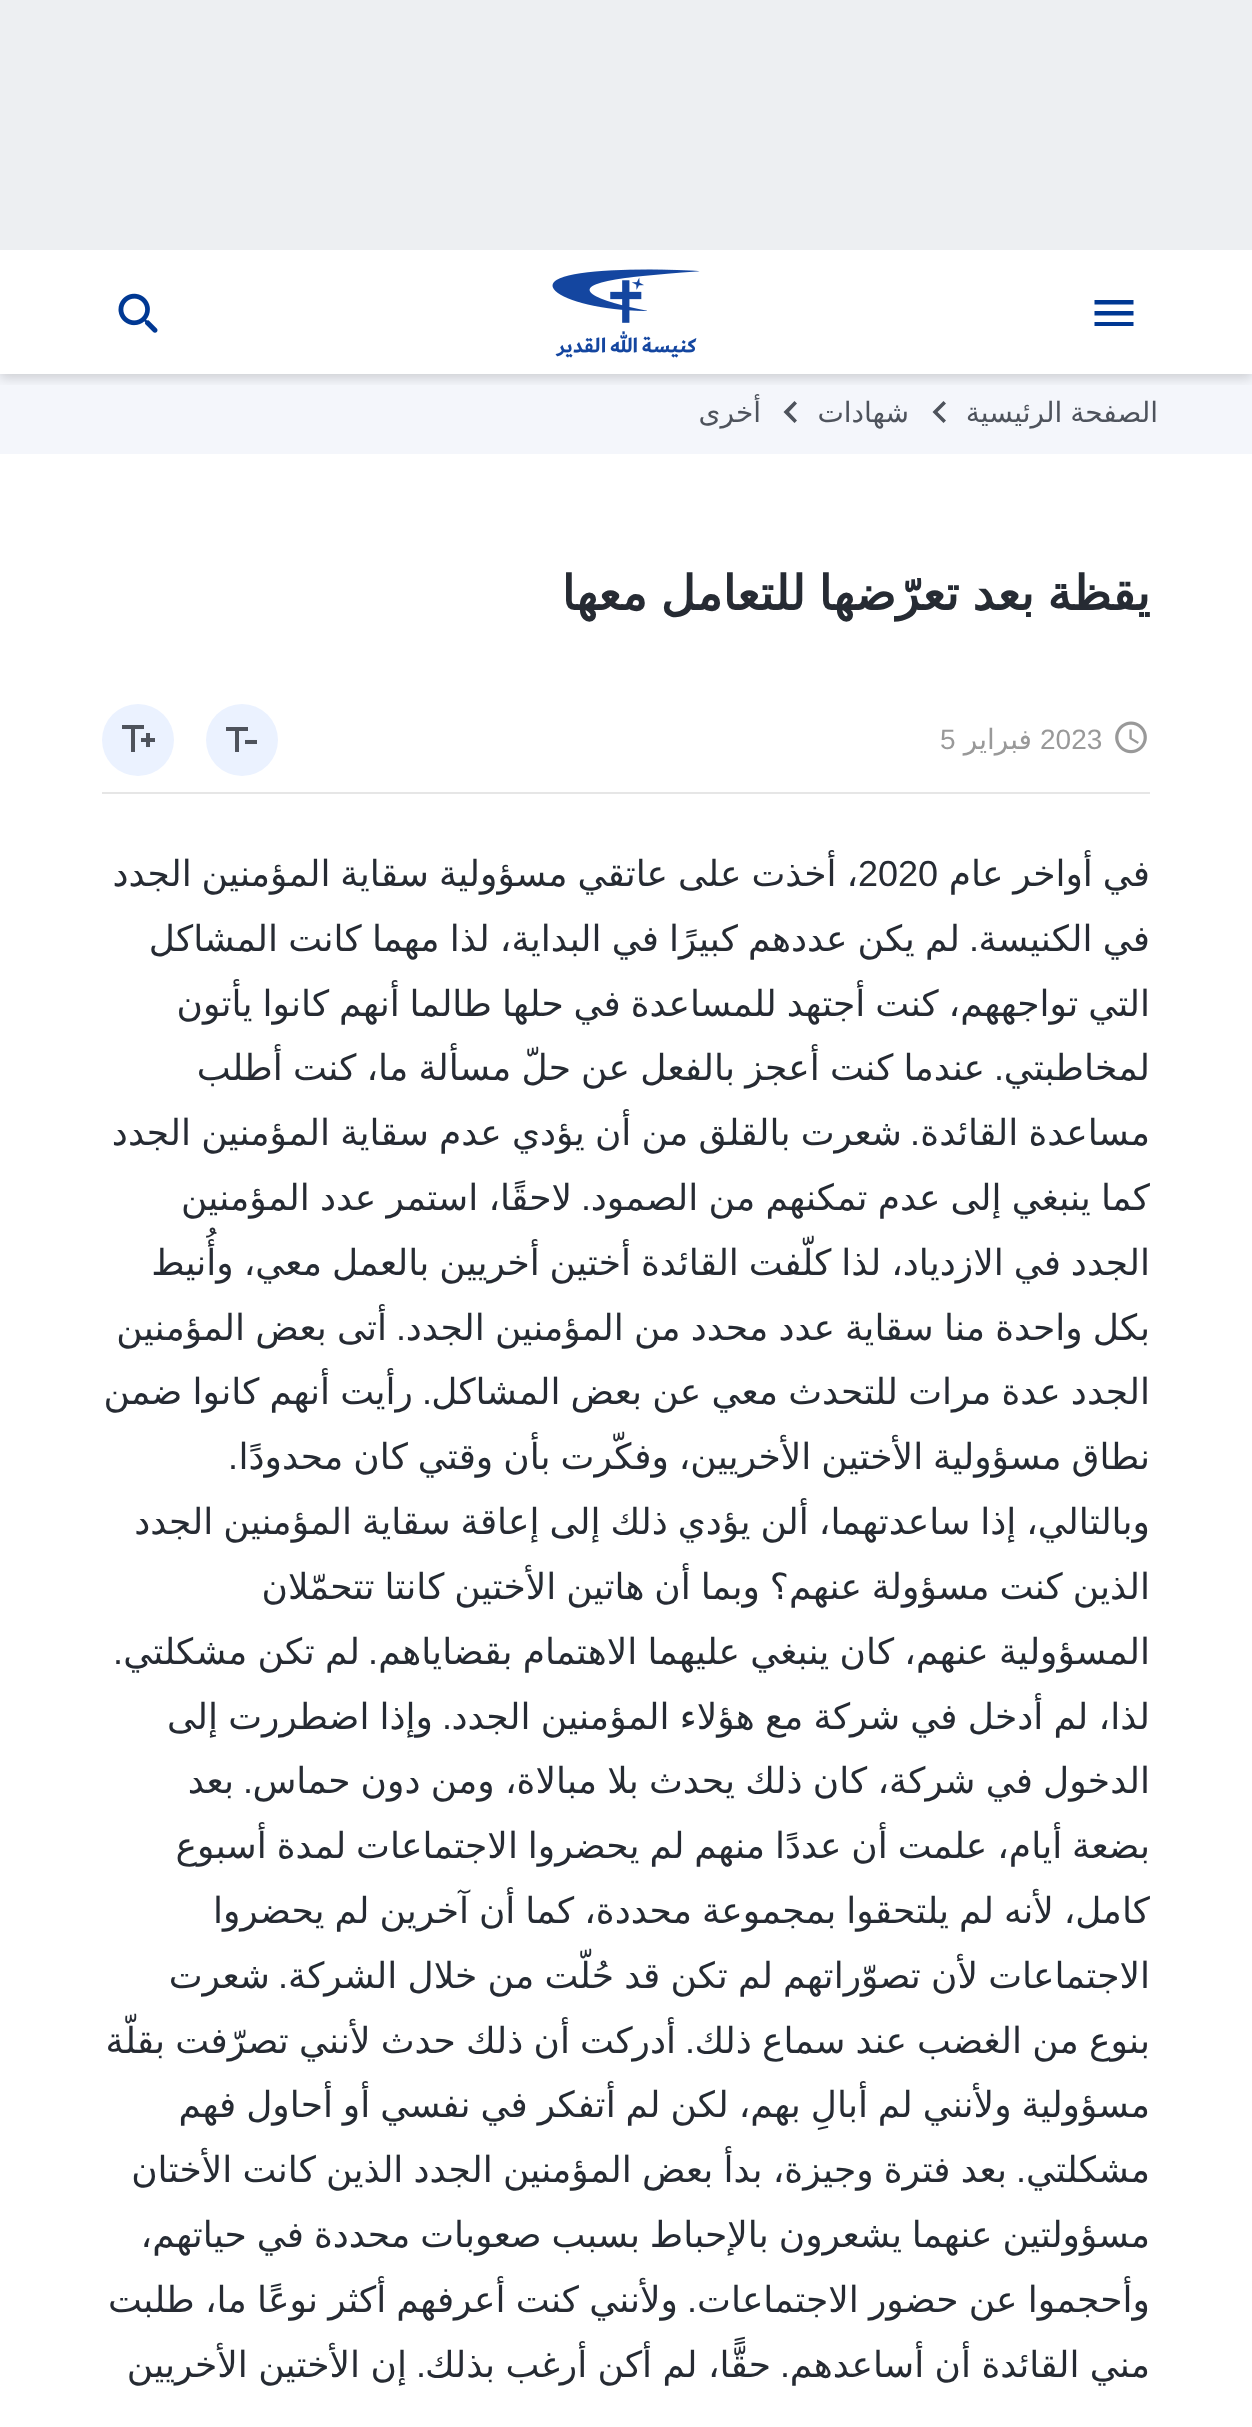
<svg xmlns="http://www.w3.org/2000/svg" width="1252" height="2427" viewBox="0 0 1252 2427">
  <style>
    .t1 { font: 28px DejaVu Sans; direction: rtl; fill: #4e535c; }
    .t2 { font: bold 48px DejaVu Sans; direction: rtl; fill: #262b33; }
    .t3 { font: 28px Liberation Sans; fill: #999; }
    .t4 { font: 28px DejaVu Sans; direction: rtl; fill: #999; }
    .t5 { font: 36px DejaVu Sans; direction: rtl; fill: #262b33; }
    .t6 { font: 36px Liberation Sans; fill: #262b33; }
    .t7 { font: 36px Liberation Sans; direction: rtl; fill: #262b33; }
  </style>
  <defs>
    <clipPath id="clip1"><rect x="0" y="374" width="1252" height="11"/></clipPath>
    <clipPath id="clip2"><rect x="102" y="842" width="1048" height="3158"/></clipPath>
  </defs>
  <rect width="100%" height="100%" fill="#fff"/>
  <rect x="0" y="374" width="1252" height="80" fill="#f4f6fb"/>
  <g clip-path="url(#clip1)">
    <rect x="0" y="254" width="1252" height="124" fill="#00000029" filter="blur(6px)"/>
  </g>
  <rect x="0" y="0" width="1252" height="250" fill="#edeff2"/>
  <path d="M1094.5 326H1133.5V322H1094.5ZM1094.5 315.5H1133.5V311H1094.5ZM1094.5 300V304.5H1133.5V300Z" fill="#003893"/>
  <image x="552" y="269" width="148" height="89" href="images/1.png"/>
  <image x="118" y="293" width="40" height="40" href="images/2.png"/>
  <text x="1158" y="422" word-spacing="-1" class="t1">الصفحة الرئيسية</text>
  <path d="M943.5 423L946 420.5L937.5 412L946 403.5L943.5 401L932.5 412Z" fill="#4e535c"/>
  <text x="909" y="422" class="t1">شهادات</text>
  <path d="M794.5 423L797 420.5L789 412L797 403.5L794.5 401L783.5 412Z" fill="#4e535c"/>
  <text x="761" y="422" class="t1">أخرى</text>
  <text x="1150" y="610" word-spacing="-2" class="t2">يقظة بعد تعرّضها للتعامل معها</text>
  <rect x="102" y="792" width="1048" height="2" fill="#e6e6e6"/>
  <image x="1115" y="721" width="32" height="33" href="images/3.png"/>
  <text x="1040" y="749" class="t3">2023</text>
  <text x="1032" y="749" class="t4">فبراير</text>
  <text x="940" y="749" class="t3">5</text>
  <circle cx="242" cy="740" r="36" fill="#ebf2ff"/>
  <image x="226" y="727" width="31" height="25" href="images/4.png"/>
  <circle cx="138" cy="740" r="36" fill="#ebf2ff"/>
  <image x="122" y="725" width="33" height="27" href="images/5.png"/>
  <g clip-path="url(#clip2)">
    <text x="1150" y="886" word-spacing="-1.5" class="t5">في أواخر عام</text>
  </g>
  <text x="858" y="886" word-spacing="-1.5" class="t5">، أخذت على عاتقي مسؤولية سقاية المؤمنين الجدد</text>
  <text x="858" y="886" class="t6">2020</text>
  <text x="1150" y="951" word-spacing="-1.25" class="t5">في الكنيسة</text>
  <text x="979" y="951" class="t7">.</text>
  <text x="960" y="951" word-spacing="-1.25" class="t5">لم يكن عددهم كبيرًا في البداية، لذا مهما كانت المشاكل</text>
  <g clip-path="url(#clip2)">
    <text x="1150" y="1016" word-spacing="-1.5" class="t5">التي تواجههم، كنت أجتهد للمساعدة في حلها طالما أنهم كانوا يأتون</text>
  </g>
  <text x="1150" y="1080" class="t5">لمخاطبتي</text>
  <text x="1004" y="1080" class="t7">.</text>
  <text x="985" y="1080" word-spacing="-1.25" class="t5">عندما كنت أعجز بالفعل عن حلّ مسألة ما، كنت أطلب</text>
  <text x="1150" y="1145" word-spacing="-1.25" class="t5">مساعدة القائدة</text>
  <text x="920" y="1145" class="t7">.</text>
  <text x="902" y="1145" word-spacing="-1.25" class="t5">شعرت بالقلق من أن يؤدي عدم سقاية المؤمنين الجدد</text>
  <g clip-path="url(#clip2)">
    <text x="1150" y="1210" word-spacing="-1.25" class="t5">كما ينبغي إلى عدم تمكنهم من الصمود</text>
  </g>
  <text x="591" y="1210" class="t7">.</text>
  <text x="572" y="1210" word-spacing="-1.25" class="t5">لاحقًا، استمر عدد المؤمنين</text>
  <g clip-path="url(#clip2)">
    <text x="1150" y="1275" word-spacing="-1.5" class="t5">الجدد في الازدياد، لذا كلّفت القائدة أختين أخريين بالعمل معي، وأُنيط</text>
    <text x="1150" y="1340" word-spacing="-1.25" class="t5">بكل واحدة منا سقاية عدد محدد من المؤمنين الجدد</text>
  </g>
  <text x="406" y="1340" class="t7">.</text>
  <text x="387" y="1340" word-spacing="-1.25" class="t5">أتى بعض المؤمنين</text>
  <g clip-path="url(#clip2)">
    <text x="1150" y="1404" word-spacing="-1.25" class="t5">الجدد عدة مرات للتحدث معي عن بعض المشاكل</text>
  </g>
  <text x="432" y="1404" class="t7">.</text>
  <text x="413" y="1404" word-spacing="-1.25" class="t5">رأيت أنهم كانوا ضمن</text>
  <g clip-path="url(#clip2)">
    <text x="1150" y="1469" word-spacing="-1.5" class="t5">نطاق مسؤولية الأختين الأخريين، وفكّرت بأن وقتي كان محدودًا</text>
  </g>
  <text x="238" y="1469" class="t7">.</text>
  <g clip-path="url(#clip2)">
    <text x="1150" y="1534" word-spacing="-1.5" class="t5">وبالتالي، إذا ساعدتهما، ألن يؤدي ذلك إلى إعاقة سقاية المؤمنين الجدد</text>
    <text x="1150" y="1599" word-spacing="-1.5" class="t5">الذين كنت مسؤولة عنهم؟ وبما أن هاتين الأختين كانتا تتحمّلان</text>
    <text x="1150" y="1664" word-spacing="-1.25" class="t5">المسؤولية عنهم، كان ينبغي عليهما الاهتمام بقضاياهم</text>
  </g>
  <text x="378" y="1664" class="t7">.</text>
  <text x="360" y="1664" word-spacing="-1.25" class="t5">لم تكن مشكلتي</text>
  <text x="123" y="1664" class="t7">.</text>
  <g clip-path="url(#clip2)">
    <text x="1150" y="1729" word-spacing="-1.25" class="t5">لذا، لم أدخل في شركة مع هؤلاء المؤمنين الجدد</text>
  </g>
  <text x="452" y="1729" class="t7">.</text>
  <text x="433" y="1729" word-spacing="-1.25" class="t5">وإذا اضطررت إلى</text>
  <g clip-path="url(#clip2)">
    <text x="1150" y="1793" word-spacing="-1.25" class="t5">الدخول في شركة، كان ذلك يحدث بلا مبالاة، ومن دون حماس</text>
  </g>
  <text x="253" y="1793" class="t7">.</text>
  <text x="234" y="1793" class="t5">بعد</text>
  <g clip-path="url(#clip2)">
    <text x="1150" y="1858" word-spacing="-1.5" class="t5">بضعة أيام، علمت أن عددًا منهم لم يحضروا الاجتماعات لمدة أسبوع</text>
    <text x="1150" y="1923" word-spacing="-1.5" class="t5">كامل، لأنه لم يلتحقوا بمجموعة محددة، كما أن آخرين لم يحضروا</text>
    <text x="1150" y="1988" word-spacing="-1.25" class="t5">الاجتماعات لأن تصوّراتهم لم تكن قد حُلّت من خلال الشركة</text>
  </g>
  <text x="288" y="1988" class="t7">.</text>
  <text x="270" y="1988" class="t5">شعرت</text>
  <g clip-path="url(#clip2)">
    <text x="1150" y="2053" word-spacing="-1.25" class="t5">بنوع من الغضب عند سماع ذلك</text>
  </g>
  <text x="695" y="2053" class="t7">.</text>
  <text x="676" y="2053" word-spacing="-1.25" class="t5">أدركت أن ذلك حدث لأنني تصرّفت بقلّة</text>
  <g clip-path="url(#clip2)">
    <text x="1150" y="2117" word-spacing="-1.5" class="t5">مسؤولية ولأنني لم أبالِ بهم، لكن لم أتفكر في نفسي أو أحاول فهم</text>
  </g>
  <text x="1150" y="2182" class="t5">مشكلتي</text>
  <text x="1026" y="2182" class="t7">.</text>
  <text x="1007" y="2182" word-spacing="-1.25" class="t5">بعد فترة وجيزة، بدأ بعض المؤمنين الجدد الذين كانت الأختان</text>
  <g clip-path="url(#clip2)">
    <text x="1150" y="2247" word-spacing="-1.5" class="t5">مسؤولتين عنهما يشعرون بالإحباط بسبب صعوبات محددة في حياتهم،</text>
    <text x="1150" y="2312" word-spacing="-1.25" class="t5">وأحجموا عن حضور الاجتماعات</text>
  </g>
  <text x="697" y="2312" class="t7">.</text>
  <text x="678" y="2312" word-spacing="-1.25" class="t5">ولأنني كنت أعرفهم أكثر نوعًا ما، طلبت</text>
  <g clip-path="url(#clip2)">
    <text x="1150" y="2377" word-spacing="-1" class="t5">مني القائدة أن أساعدهم</text>
  </g>
  <text x="790" y="2377" class="t7">.</text>
  <text x="771" y="2377" word-spacing="-1" class="t5">حقًّا، لم أكن أرغب بذلك</text>
  <text x="426" y="2377" class="t7">.</text>
  <text x="407" y="2377" word-spacing="-1" class="t5">إن الأختين الأخريين</text>
</svg>
